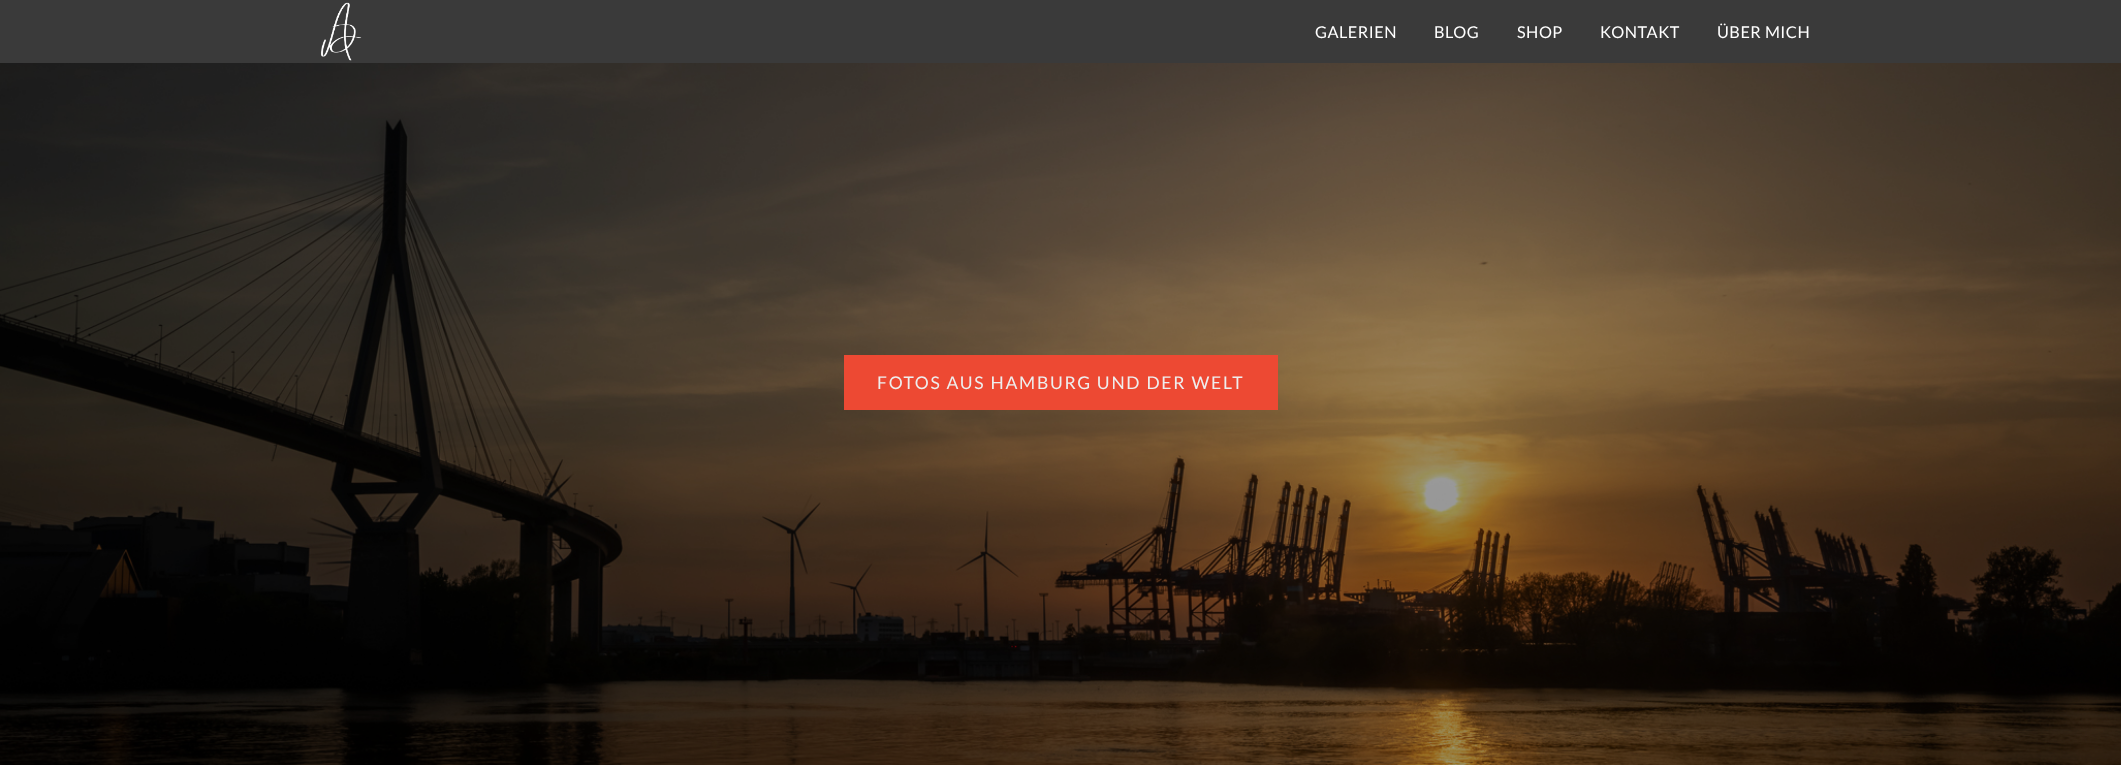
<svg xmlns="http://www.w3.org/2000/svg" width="2121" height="765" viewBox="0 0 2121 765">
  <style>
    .t1 { font: 16.25px Lato; letter-spacing: 0.5px; fill: #fff; }
    .t2 { font: 17.5px Lato; letter-spacing: 1.75px; fill: #eee; }
  </style>
  <rect width="100%" height="100%" fill="#fff"/>
  <rect x="0" y="0" width="2121" height="63" fill="#3a3a3a"/>
  <image x="320" y="2" width="42" height="59" href="images/1.png"/>
  <text x="1315" y="38" class="t1">GALERIEN</text>
  <text x="1434" y="38" class="t1">BLOG</text>
  <text x="1517" y="38" class="t1">SHOP</text>
  <text x="1600" y="38" class="t1">KONTAKT</text>
  <text x="1717" y="38" class="t1">ÜBER MICH</text>
  <image x="0" y="63" width="2121" height="702" href="images/2.png"/>
  <rect x="844" y="355" width="434" height="55" fill="#ed4933"/>
  <text x="877" y="389" class="t2">FOTOS AUS HAMBURG UND DER WELT</text>
</svg>
